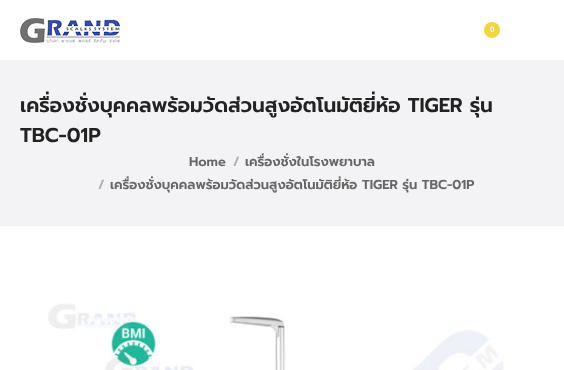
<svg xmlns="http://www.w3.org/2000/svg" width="564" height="370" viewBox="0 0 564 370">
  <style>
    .t1 { font: bold 8px Liberation Sans; fill: #fff; }
    .t2 { font: 600 20px Prompt; fill: #222; }
    .t3 { font: 600 13px Prompt; fill: #666; }
    .t4 { font: 600 13px Prompt; fill: #adadae; }
  </style>
  <rect width="100%" height="100%" fill="#fff"/>
  <image x="20" y="18" width="100" height="25" href="images/1.png"/>
  <circle cx="492" cy="30" r="8" fill="#f1d63e"/>
  <text x="490" y="32" class="t1">0</text>
  <rect x="0" y="60" width="564" height="166" fill="#f3f3f5"/>
  <text x="20" y="112" class="t2">เครื่องชั่งบุคคลพร้อมวัดส่วนสูงอัตโนมัติยี่ห้อ TIGER รุ่น</text>
  <text x="20" y="142" class="t2">TBC-01P</text>
  <text x="189" y="166" class="t3">Home</text>
  <text x="233" y="166" class="t4">/</text>
  <text x="245" y="166" class="t3">เครื่องชั่งในโรงพยาบาล</text>
  <text x="98" y="189" class="t4">/</text>
  <text x="110" y="189" class="t3">เครื่องชั่งบุคคลพร้อมวัดส่วนสูงอัตโนมัติยี่ห้อ TIGER รุ่น TBC-01P</text>
  <image x="48" y="303" width="456" height="67" href="images/2.png"/>
</svg>
